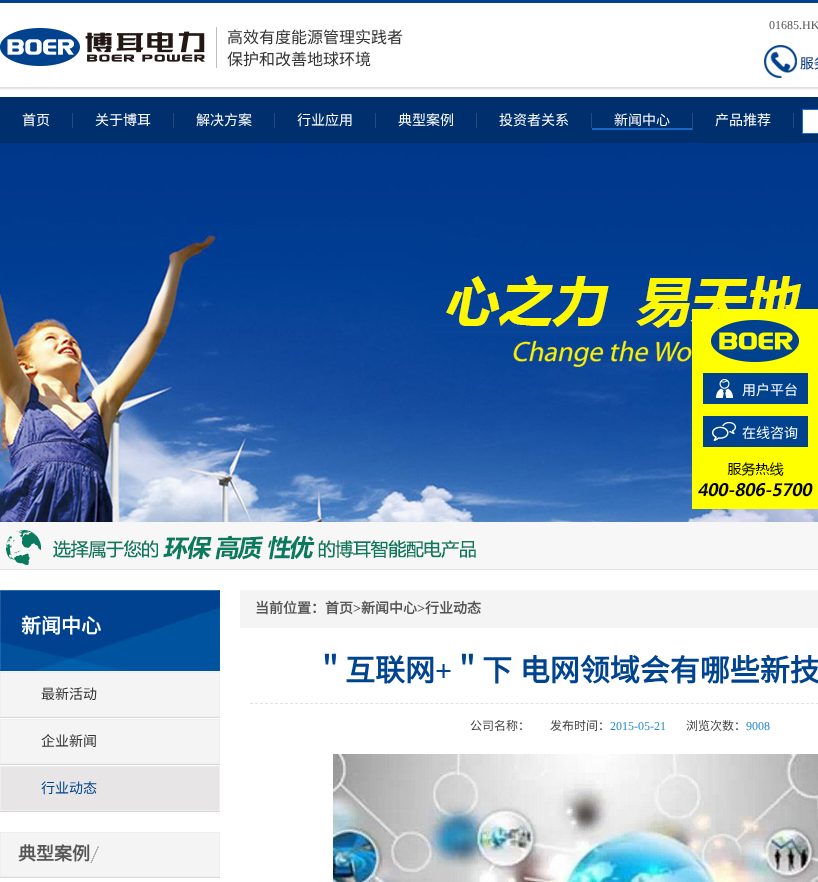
<svg xmlns="http://www.w3.org/2000/svg" width="818" height="882" viewBox="0 0 818 882">
  <style>
    .t1 { font: 12px Liberation Serif; fill: #555; }
    .t2 { font: 16px Noto Sans CJK SC; fill: #333; }
    .t3 { font: 14px Noto Sans CJK SC; fill: #fff; }
    .t4 { font: bold 20px Noto Sans CJK SC; fill: #fff; }
    .t5 { font: 14px Noto Sans CJK SC; fill: #333; }
    .t6 { font: 14px Noto Sans CJK SC; fill: #00438f; }
    .t7 { font: bold 18px Noto Sans CJK SC; fill: #555; }
    .t8 { font: bold 14px Noto Sans CJK SC; fill: #555; }
    .t9 { font: bold 14px Liberation Serif; fill: #555; }
    .t10 { font: bold 30px Noto Sans CJK SC; fill: #00438f; }
    .t11 { font: bold 30px Liberation Serif; fill: #00438f; }
    .t12 { font: 12px Noto Sans CJK SC; fill: #444; }
    .t13 { font: 12px Liberation Serif; fill: #258ad2; }
  </style>
  <rect width="100%" height="100%" fill="#fff"/>
  <image x="0" y="0" width="818" height="90" href="images/1.png"/>
  <text x="769" y="29" class="t1">01685.HK</text>
  <image x="764" y="45" width="54" height="33" href="images/2.png"/>
  <image x="0" y="27" width="217" height="41" href="images/3.png"/>
  <text x="227" y="43" class="t2">高效有度能源管理实践者</text>
  <text x="227" y="65" class="t2">保护和改善地球环境</text>
  <rect x="0" y="97" width="818" height="46" fill="#002f6e"/>
  <text x="22" y="125" class="t3">首页</text>
  <rect x="72" y="113" width="1" height="15" fill="#214a81"/>
  <text x="95" y="125" class="t3">关于博耳</text>
  <rect x="173" y="113" width="1" height="15" fill="#214a81"/>
  <text x="196" y="125" class="t3">解决方案</text>
  <rect x="274" y="113" width="1" height="15" fill="#214a81"/>
  <text x="297" y="125" class="t3">行业应用</text>
  <rect x="375" y="113" width="1" height="15" fill="#214a81"/>
  <text x="398" y="125" class="t3">典型案例</text>
  <rect x="476" y="113" width="1" height="15" fill="#214a81"/>
  <text x="499" y="125" class="t3">投资者关系</text>
  <rect x="591" y="113" width="1" height="15" fill="#214a81"/>
  <text x="614" y="125" class="t3">新闻中心</text>
  <path d="M693 113V130L692 128V113Z" fill="#214a81"/>
  <path d="M693 130H592V128H692Z" fill="#1568c8"/>
  <text x="715" y="125" class="t3">产品推荐</text>
  <rect x="793" y="113" width="1" height="15" fill="#214a81"/>
  <rect x="802.5" y="109.5" width="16" height="24" fill="#fff" stroke="#176dd0"/>
  <image x="0" y="143" width="818" height="379" href="images/4.png"/>
  <image x="692" y="309" width="126" height="200" href="images/5.png"/>
  <text x="742" y="395" class="t3">用户平台</text>
  <text x="742" y="438" class="t3">在线咨询</text>
  <rect x="0" y="522" width="818" height="47" fill="#f7f7f7"/>
  <rect x="0" y="569" width="818" height="1" fill="#e4e4e4"/>
  <image x="6" y="530" width="470" height="35" href="images/6.png"/>
  <image x="0" y="590" width="220" height="81" href="images/7.png"/>
  <rect x="0" y="671" width="220" height="1" fill="#f3f3f3"/>
  <text x="21" y="633" class="t4">新闻中心</text>
  <rect x="0" y="717" width="220" height="1" fill="#d9d9d9"/>
  <rect x="0.5" y="672.5" width="219" height="44" fill="#f4f4f4" stroke="#eee"/>
  <text x="41" y="699" class="t5">最新活动</text>
  <rect x="0" y="764" width="220" height="1" fill="#d9d9d9"/>
  <rect x="0.5" y="719.5" width="219" height="44" fill="#f4f4f4" stroke="#eee"/>
  <text x="41" y="746" class="t5">企业新闻</text>
  <rect x="0" y="811" width="220" height="1" fill="#d9d9d9"/>
  <rect x="0.5" y="766.5" width="219" height="44" fill="#e7e5e5" stroke="#eee"/>
  <text x="41" y="793" class="t6">行业动态</text>
  <rect x="0" y="877" width="220" height="1" fill="#d9d9d9"/>
  <rect x="0.5" y="832.5" width="219" height="44" fill="#f4f4f4" stroke="#eee"/>
  <text x="18" y="860" class="t7">典型案例</text>
  <image x="90" y="846" width="9" height="17" href="images/8.png"/>
  <rect x="240" y="590" width="578" height="38" fill="#f4f4f4"/>
  <text x="255" y="613" class="t8">当前位置：首页</text>
  <text x="353" y="613" class="t9">&gt;</text>
  <text x="361" y="613" class="t8">新闻中心</text>
  <text x="417" y="613" class="t9">&gt;</text>
  <text x="425" y="613" class="t8">行业动态</text>
  <path d="M250 703.5H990" fill="none" stroke="#e1e1e1" stroke-dasharray="3 2.01"/>
  <text x="315" y="681" class="t10">＂互联网</text>
  <text x="435" y="681" class="t11">+</text>
  <text x="452" y="681" word-spacing="1" class="t10">＂下 电网领域会有哪些新技</text>
  <text x="470" y="730" class="t12">公司名称：</text>
  <text x="550" y="730" class="t12">发布时间：</text>
  <text x="610" y="730" class="t13">2015-05-21</text>
  <text x="686" y="730" class="t12">浏览次数：</text>
  <text x="746" y="730" class="t13">9008</text>
  <image x="333" y="754" width="485" height="128" href="images/9.png"/>
</svg>
